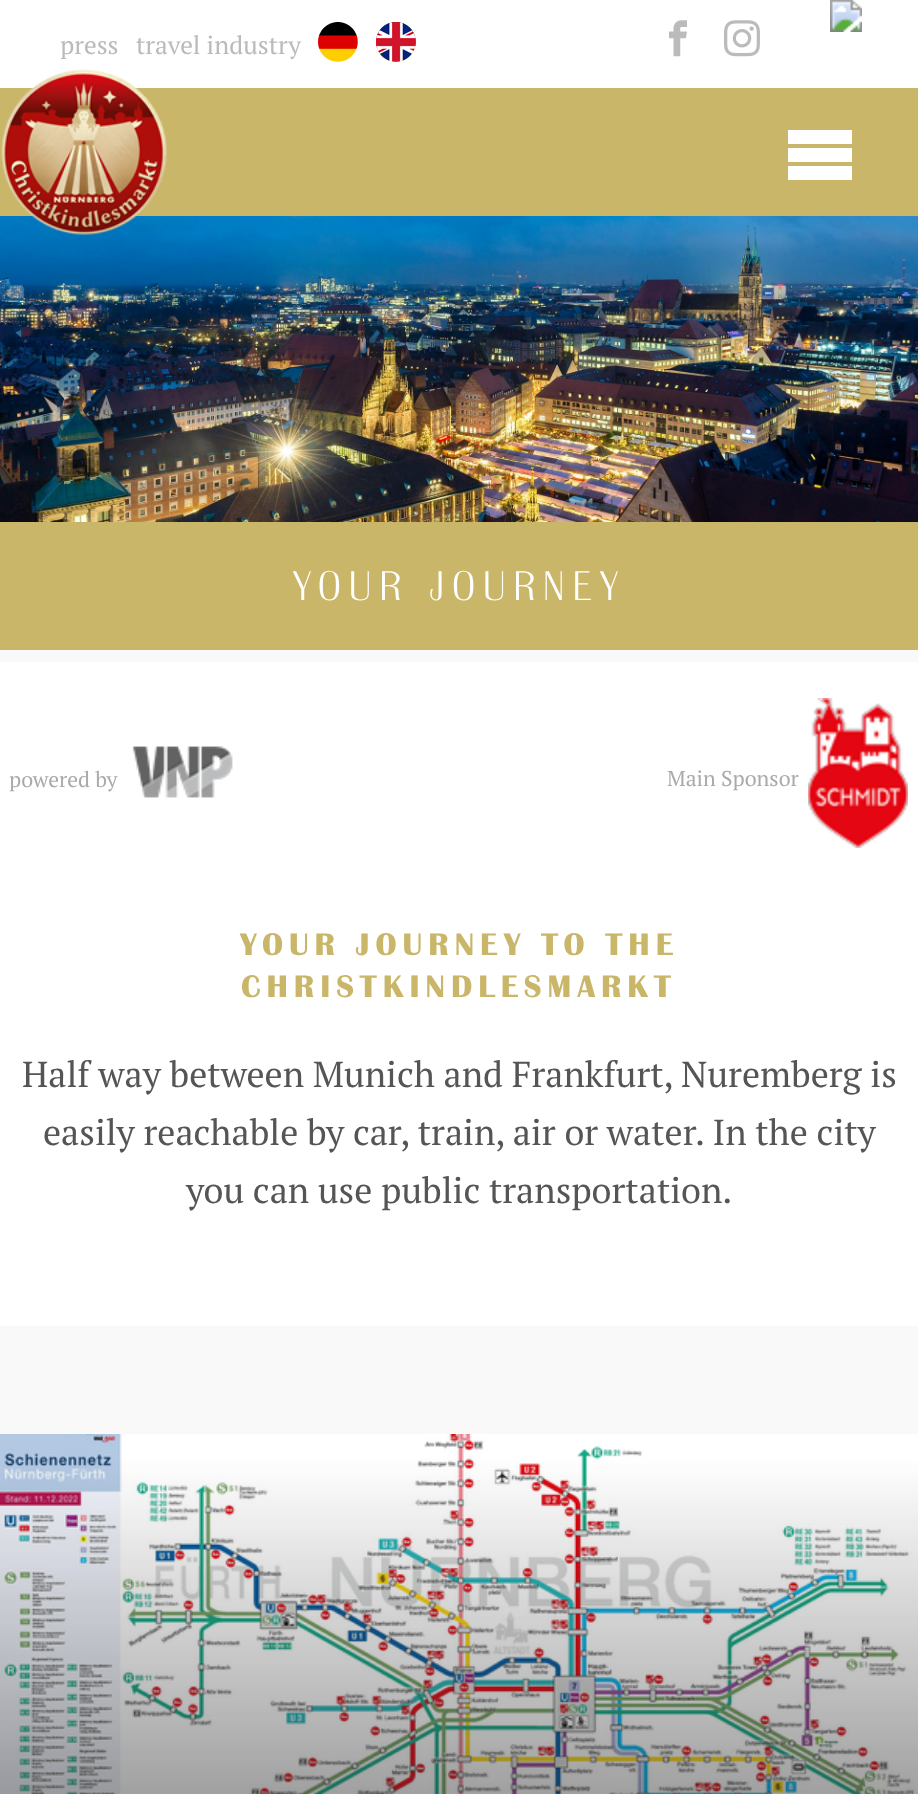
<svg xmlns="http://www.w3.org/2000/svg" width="918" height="1794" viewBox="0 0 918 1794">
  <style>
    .t1 { font: 25.25px PT Serif; fill: #bbb; }
    .t2 { font: 43.25px 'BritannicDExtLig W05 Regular'; letter-spacing: 8px; fill: #fff; }
    .t3 { font: 21.5px PT Serif; fill: #aaa; }
    .t4 { font: 32.4px 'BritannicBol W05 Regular'; letter-spacing: 6px; fill: #c9b669; }
    .t5 { font: 36px PT Serif; fill: #555; }
  </style>
  <rect width="100%" height="100%" fill="#f9f9f9"/>
  <rect x="0" y="88" width="918" height="128" fill="#c9b669"/>
  <rect x="0" y="0" width="918" height="88" fill="#fff"/>
  <text x="60" y="54" class="t1">press</text>
  <text x="136" y="54" class="t1">travel industry</text>
  <image x="318" y="22" width="40" height="40" href="images/1.png"/>
  <image x="376" y="22" width="40" height="40" href="images/2.png"/>
  <image x="830" y="0" width="32" height="32" href="images/3.png"/>
  <image x="669" y="20" width="18" height="37" href="images/4.png"/>
  <image x="724" y="20" width="36" height="37" href="images/5.png"/>
  <image x="0" y="216" width="918" height="306" href="images/7.png"/>
  <image x="1" y="69" width="166" height="166" href="images/6.png"/>
  <path d="M788 130H852V144H788ZM788 148H852V162H788ZM788 166H852V180H788Z" fill="#fff"/>
  <rect x="0" y="522" width="918" height="128" fill="#c9b669"/>
  <text x="293" y="600" class="t2">YOUR JOURNEY</text>
  <rect x="0" y="662" width="918" height="664" fill="#fff"/>
  <text x="9" y="787" class="t3">powered by</text>
  <image x="132" y="746" width="101" height="52" href="images/8.png"/>
  <text x="667" y="786" class="t3">Main Sponsor</text>
  <image x="808" y="698" width="100" height="150" href="images/9.png"/>
  <text x="240" y="955" class="t4">YOUR JOURNEY TO THE</text>
  <text x="241" y="997" class="t4">CHRISTKINDLESMARKT</text>
  <text x="22" y="1087" class="t5">Half way between Munich and Frankfurt, Nuremberg is</text>
  <text x="43" y="1145" class="t5">easily reachable by car, train, air or water. In the city</text>
  <text x="186" y="1203" class="t5">you can use public transportation.</text>
  <image x="0" y="1434" width="918" height="360" href="images/10.png"/>
</svg>
